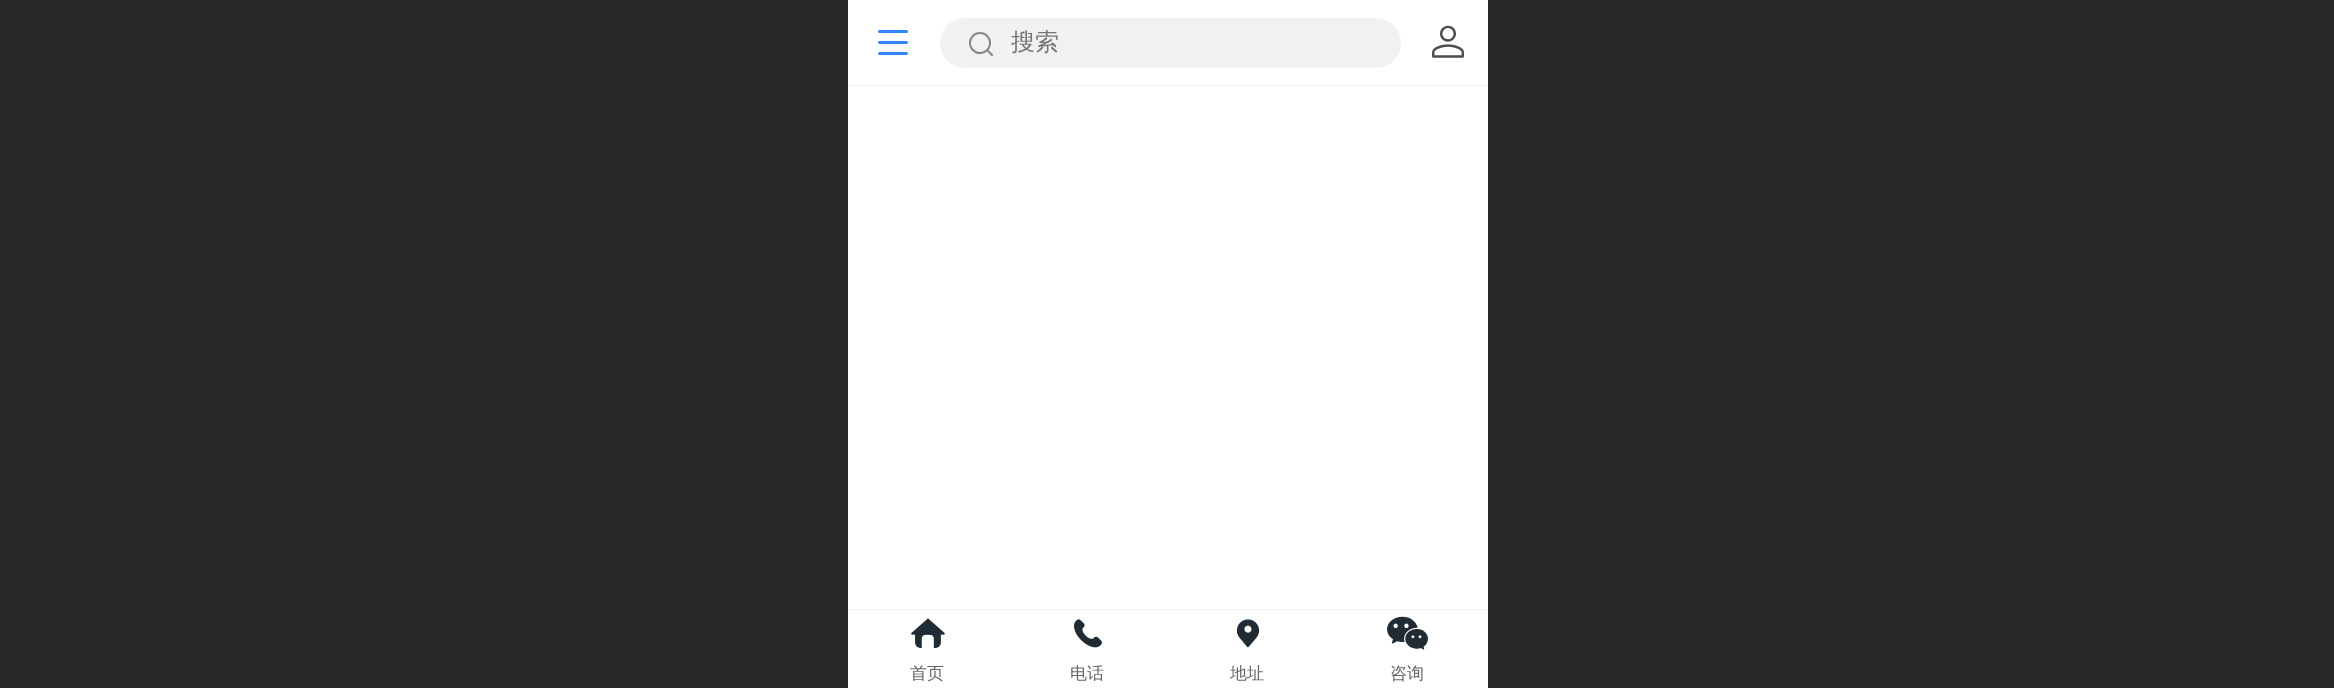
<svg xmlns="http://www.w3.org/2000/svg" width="2334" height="688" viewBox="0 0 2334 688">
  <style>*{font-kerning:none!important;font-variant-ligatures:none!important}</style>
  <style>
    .t1 { font: 30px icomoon; fill: #3285ff; }
    .t2 { font: 24px icomoon; fill: #868686; }
    .t3 { font: 500 24px WenQuanYi Zen Hei; fill: #757575; }
    .t4 { font: 32px icomoon; fill: #4d4d4d; }
    .t5 { font: 500 17px WenQuanYi Zen Hei; fill: #666; }
    .t6 { font: 41px icomoon; fill: #202b34; }
  </style>
  <rect width="100%" height="100%" fill="#fff"/>
  <rect x="0" y="0" width="848" height="688" fill="#282828"/>
  <text x="878" y="55" class="t1">򰌲</text>
  <rect x="848" y="85" width="640" height="1" fill="#eee"/>
  <rect x="940" y="18" width="461" height="50" rx="25" fill="#f0f1f3"/>
  <text x="969" y="54" class="t2">򰊐</text>
  <text x="1011" y="50" class="t3">搜索</text>
  <text x="1432" y="55" class="t4">򰊈</text>
  <rect x="848" y="609" width="640" height="1" fill="#f4f4f4"/>
  <image x="911" y="618" width="34" height="30" href="images/1.png"/>
  <text x="910" y="679" class="t5">首页</text>
  <image x="1074" y="619" width="28" height="29" href="images/2.png"/>
  <text x="1070" y="679" class="t5">电话</text>
  <image x="1236" y="619" width="24" height="29" href="images/3.png"/>
  <text x="1230" y="679" class="t5">地址</text>
  <text x="1387" y="651" class="t6">򠤙</text>
  <text x="1390" y="679" class="t5">咨询</text>
  <rect x="1488" y="0" width="846" height="688" fill="#282828"/>
</svg>
